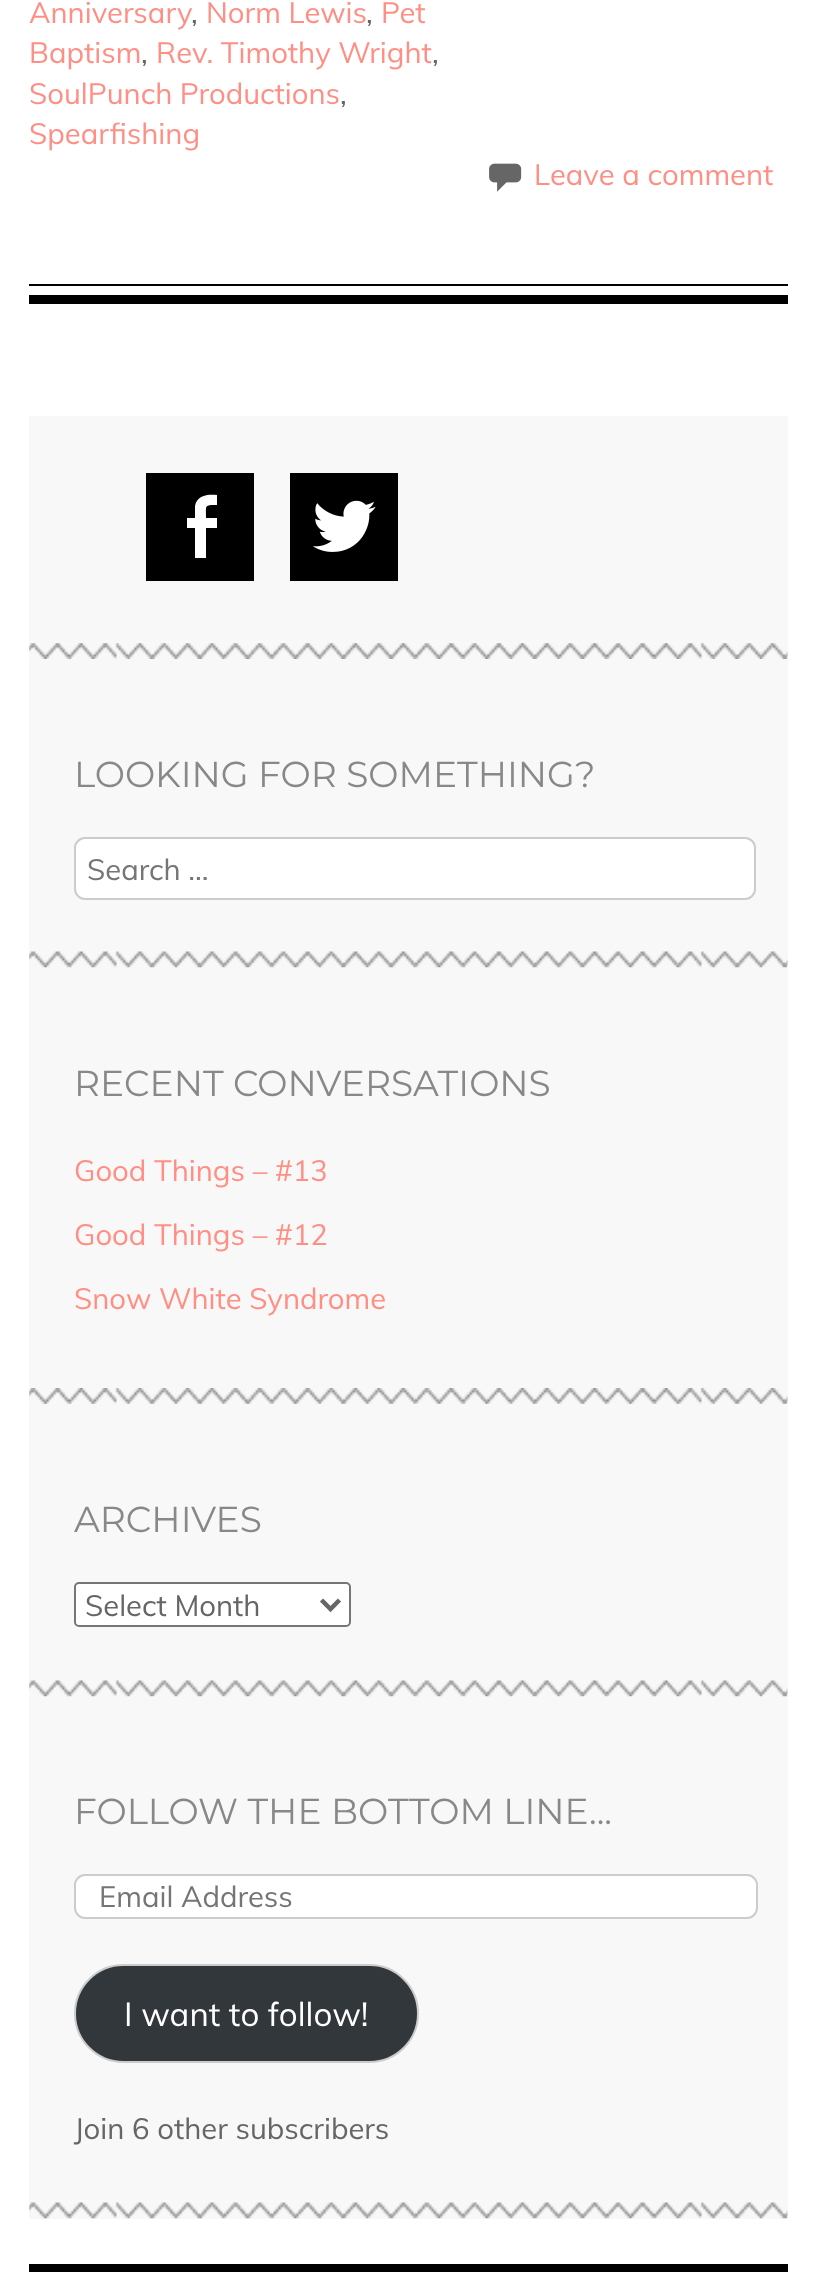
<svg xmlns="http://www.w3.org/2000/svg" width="815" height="2272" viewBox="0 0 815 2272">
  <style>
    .t1 { font: 29.25px Muli; fill: #ff8f85; }
    .t2 { font: 29.25px Muli; fill: #666; }
    .t3 { font: 36px Montserrat; fill: #888; }
    .t4 { font: 29.25px Muli; fill: #757575; }
    .t5 { font: 33px Muli; fill: #fff; }
  </style>
  <rect width="100%" height="100%" fill="#fff"/>
  <text x="29" y="23" class="t1">Anniversary</text>
  <text x="191" y="23" class="t2">,</text>
  <text x="206" y="23" class="t1">Norm Lewis</text>
  <text x="366" y="23" class="t2">,</text>
  <text x="381" y="23" class="t1">Pet</text>
  <text x="29" y="63" class="t1">Baptism</text>
  <text x="141" y="63" class="t2">,</text>
  <text x="156" y="63" class="t1">Rev. Timothy Wright</text>
  <text x="432" y="63" class="t2">,</text>
  <text x="29" y="104" class="t1">SoulPunch Productions</text>
  <text x="340" y="104" class="t2">,</text>
  <text x="29" y="144" class="t1">Spearfishing</text>
  <image x="489" y="163" width="33" height="29" href="images/1.png"/>
  <text x="534" y="185" class="t1">Leave a comment</text>
  <rect x="29" y="284" width="759" height="2" fill="#000"/>
  <rect x="29" y="295" width="759" height="9" fill="#000"/>
  <rect x="29" y="416" width="759" height="1803" fill="#f8f8f8"/>
  <image x="29" y="643" width="759" height="16" href="images/2.png"/>
  <rect x="146" y="473" width="108" height="108" fill="#000"/>
  <path d="M206 518H217V528H206V558H195V528H187V518H195V506C197 495 208 494 217 495V505C204 505 206 505 206 518Z" fill="#fff"/>
  <rect x="290" y="473" width="108" height="108" fill="#000"/>
  <image x="312" y="500" width="64" height="52" href="images/3.png"/>
  <image x="29" y="951" width="759" height="17" href="images/4.png"/>
  <text x="74" y="787" class="t3">LOOKING FOR SOMETHING?</text>
  <rect x="75" y="838" width="680" height="61" rx="10" fill="#fff" stroke="#ccc" stroke-width="2"/>
  <text x="87" y="880" class="t4">Search …</text>
  <image x="29" y="1388" width="759" height="16" href="images/5.png"/>
  <text x="74" y="1096" class="t3">RECENT CONVERSATIONS</text>
  <text x="74" y="1181" class="t1">Good Things – #13</text>
  <text x="74" y="1245" class="t1">Good Things – #12</text>
  <text x="74" y="1309" class="t1">Snow White Syndrome</text>
  <image x="29" y="1680" width="759" height="17" href="images/6.png"/>
  <text x="74" y="1532" class="t3">ARCHIVES</text>
  <rect x="75" y="1583" width="275" height="43" rx="4" fill="#fff" stroke="#767676" stroke-width="2"/>
  <path d="M321.5 1600L330.5 1609L339.5 1600" fill="none" stroke="#666" stroke-width="4.5"/>
  <text x="85" y="1616" class="t2">Select Month</text>
  <image x="29" y="2202" width="759" height="17" href="images/6.png"/>
  <text x="74" y="1824" class="t3">FOLLOW THE BOTTOM LINE...</text>
  <rect x="75" y="1875" width="682" height="43" rx="10" fill="#fff" stroke="#ccc" stroke-width="2"/>
  <text x="99" y="1907" class="t4">Email Address</text>
  <rect x="75" y="1965" width="343" height="97" rx="48.5" fill="#32373c" stroke="#ccc" stroke-width="2"/>
  <text x="124" y="2026" class="t5">I want to follow!</text>
  <text x="74" y="2139" class="t2">Join 6 other subscribers</text>
  <rect x="29" y="2264" width="759" height="8" fill="#000"/>
</svg>
